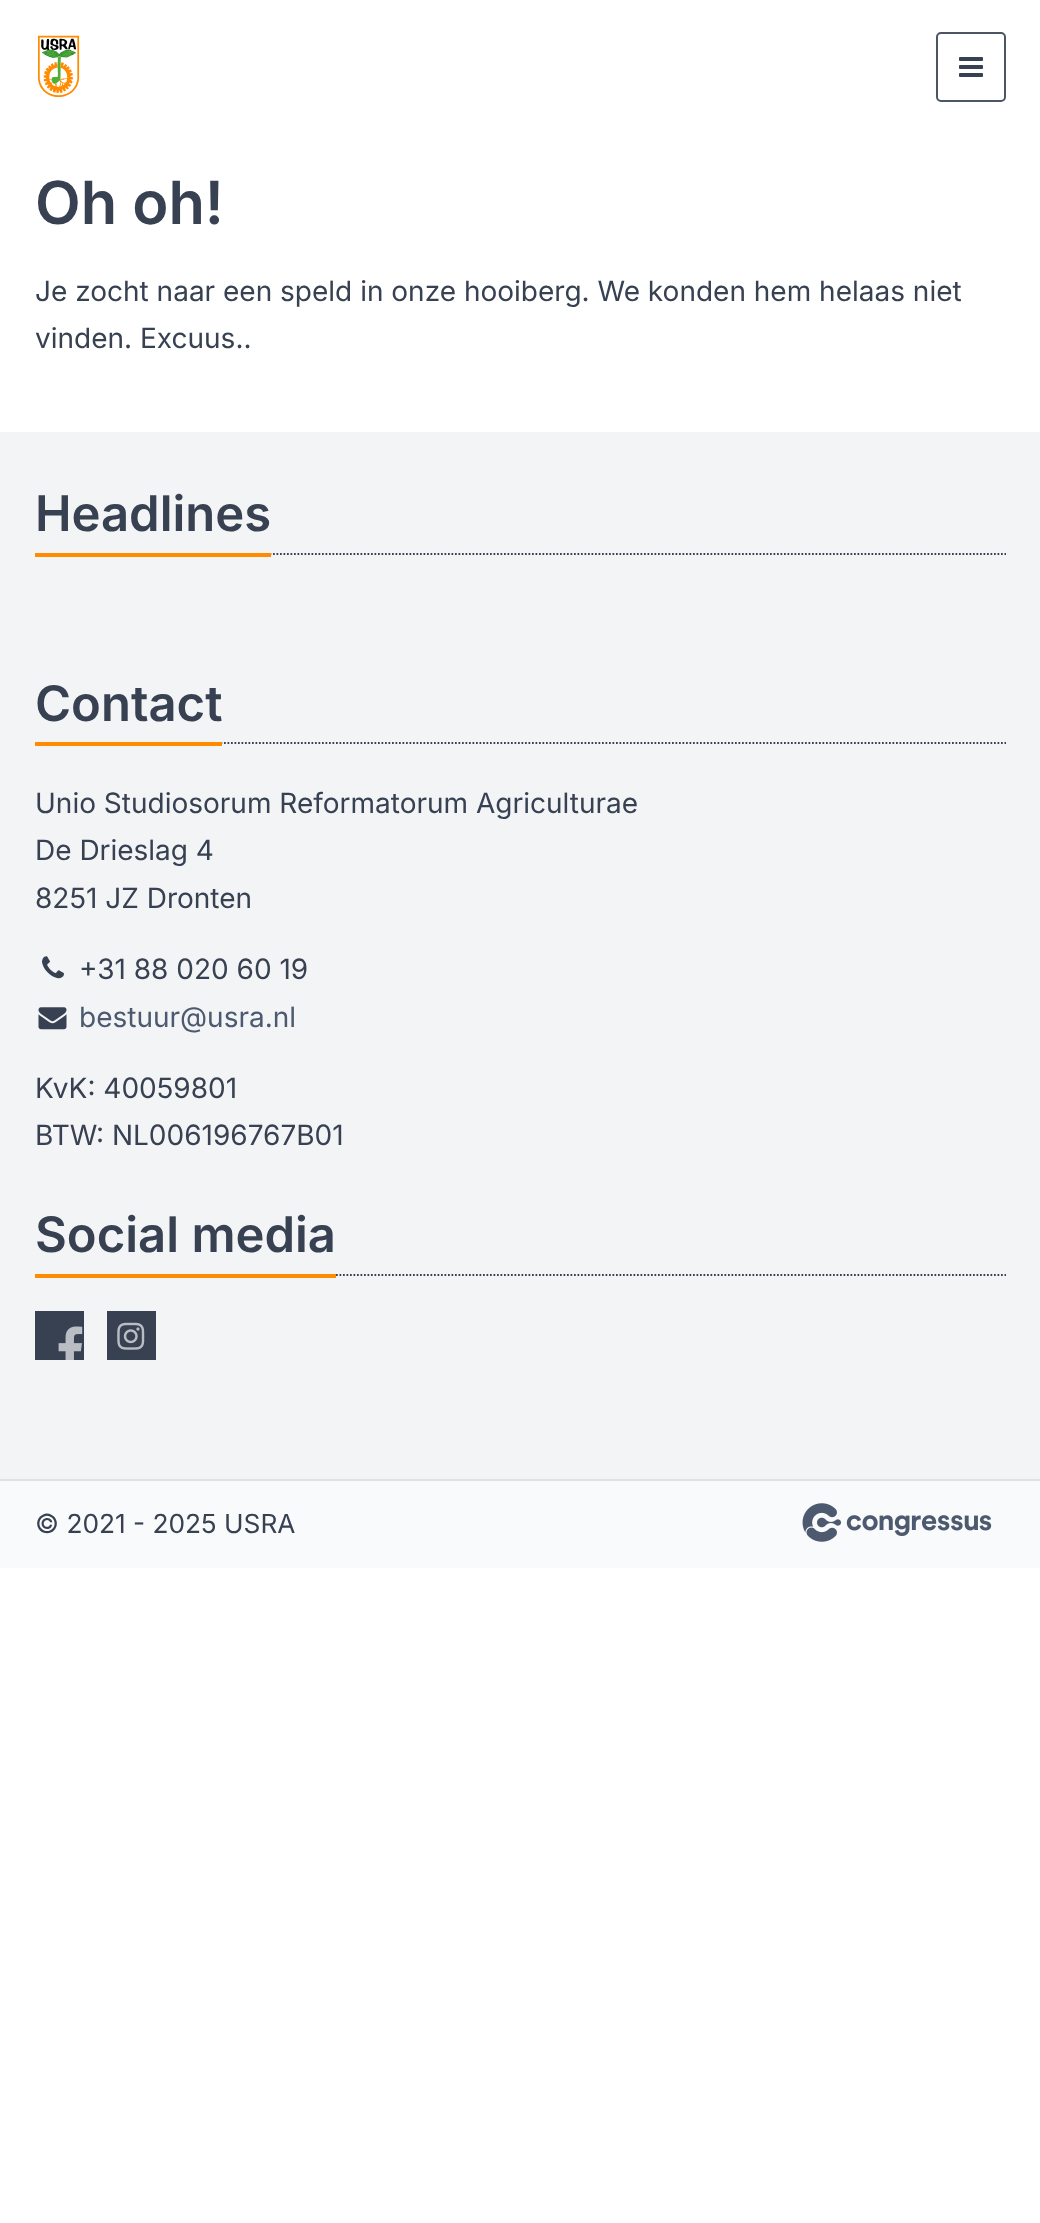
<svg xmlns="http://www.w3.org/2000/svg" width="1040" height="2223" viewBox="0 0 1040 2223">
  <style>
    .t1 { font: 600 59.5px Inter; fill: #374151; }
    .t2 { font: 28px Inter; fill: #374151; }
    .t3 { font: 600 49px Inter; fill: #374151; }
    .t4 { font: 28px Inter; fill: #4c596f; }
    .t5 { font: 26.25px Inter; fill: #374151; }
  </style>
  <rect width="100%" height="100%" fill="#fff"/>
  <image x="38" y="35" width="42" height="62" href="images/1.png"/>
  <rect x="937" y="33" width="68" height="68" rx="4" fill="none" stroke="#4b5563" stroke-width="2"/>
  <image x="959" y="57" width="24" height="20" href="images/2.png"/>
  <text x="35" y="224" class="t1">Oh oh!</text>
  <text x="35" y="301" class="t2">Je zocht naar een speld in onze hooiberg. We konden hem helaas niet</text>
  <text x="35" y="348" class="t2">vinden. Excuus..</text>
  <rect x="0" y="432" width="1040" height="1047" fill="#f3f4f6"/>
  <path d="M35 554H1006" fill="none" stroke="#374151" stroke-width="1.8" stroke-dasharray="1.75 1.75"/>
  <rect x="35" y="553" width="236" height="4" fill="#ff8c00"/>
  <text x="35" y="531" class="t3">Headlines</text>
  <path d="M35 743H1006" fill="none" stroke="#374151" stroke-width="1.8" stroke-dasharray="1.75 1.75"/>
  <rect x="35" y="742" width="187" height="4" fill="#ff8c00"/>
  <text x="35" y="721" class="t3">Contact</text>
  <text x="35" y="813" class="t2">Unio Studiosorum Reformatorum Agriculturae</text>
  <text x="35" y="860" class="t2">De Drieslag 4</text>
  <text x="35" y="908" class="t2">8251 JZ Dronten</text>
  <image x="42" y="956" width="22" height="23" href="images/3.png"/>
  <text x="79" y="979" class="t2">+31 88 020 60 19</text>
  <image x="38" y="1007" width="29" height="23" href="images/4.png"/>
  <text x="79" y="1027" class="t4">bestuur@usra.nl</text>
  <text x="35" y="1098" class="t2">KvK: 40059801</text>
  <text x="35" y="1145" class="t2">BTW: NL006196767B01</text>
  <path d="M35 1275H1006" fill="none" stroke="#374151" stroke-width="1.8" stroke-dasharray="1.75 1.75"/>
  <rect x="35" y="1274" width="301" height="4" fill="#ff8c00"/>
  <text x="35" y="1252" class="t3">Social media</text>
  <rect x="35" y="1311" width="49" height="49" fill="#374151"/>
  <image x="58" y="1326" width="25" height="34" href="images/5.png"/>
  <rect x="107" y="1311" width="49" height="49" fill="#374151"/>
  <image x="117" y="1322" width="28" height="28" href="images/6.png"/>
  <rect x="0" y="1481" width="1040" height="87" fill="#f9fafb"/>
  <rect x="0" y="1479" width="1040" height="2" fill="#e0e1e2"/>
  <text x="35" y="1533" class="t5">© 2021 - 2025 USRA</text>
  <image x="802" y="1503" width="190" height="39" href="images/7.png"/>
</svg>
